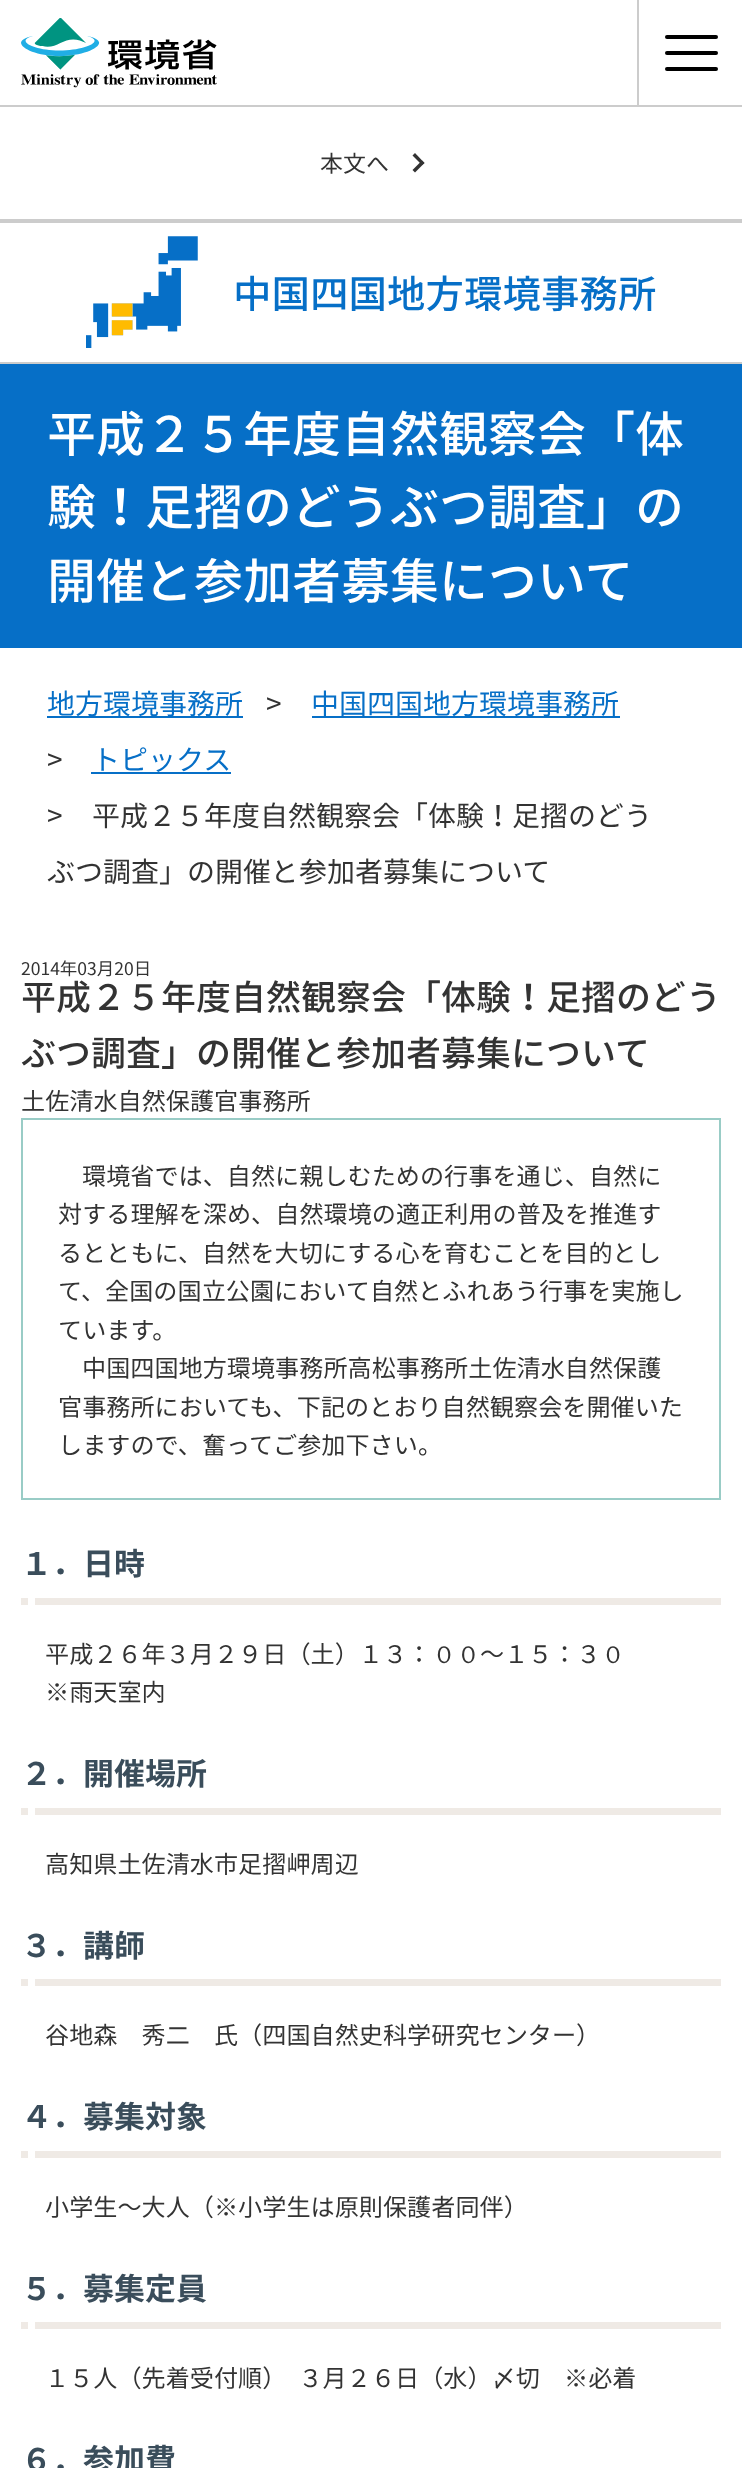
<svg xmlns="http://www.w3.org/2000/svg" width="742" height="2468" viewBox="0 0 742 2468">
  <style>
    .t1 { font: 23px Noto Sans CJK JP; fill: #333; }
    .t2 { font: 500 38.5px Noto Sans CJK JP; fill: #066fc7; }
    .t3 { font: 500 49px Noto Sans CJK JP; fill: #fff; }
    .t4 { font: 28px Noto Sans CJK JP; fill: #066fc7; }
    .t5 { font: 28px Noto Sans CJK JP; fill: #333; }
    .t6 { font: 17.5px Noto Sans CJK JP; fill: #333; }
    .t7 { font: 500 35px Noto Sans CJK JP; fill: #333; }
    .t8 { font: 24.15px Noto Sans CJK JP; fill: #333; }
    .t9 { font: bold 31px Noto Sans CJK JP; fill: #3a4d5b; }
    .t10 { font: 500 24.15px WenQuanYi Zen Hei; fill: #333; }
  </style>
  <rect width="100%" height="100%" fill="#fff"/>
  <rect x="637" y="0" width="2" height="105" fill="#ccc"/>
  <rect x="665" y="51" width="53" height="4" rx="2" fill="#000"/>
  <rect x="665" y="35" width="53" height="4" rx="2" fill="#000"/>
  <rect x="665" y="67" width="53" height="4" rx="2" fill="#000"/>
  <image x="21" y="18" width="196" height="70" href="images/1.png"/>
  <rect x="0" y="105" width="742" height="2" fill="#ccc"/>
  <rect x="0" y="219" width="742" height="4" fill="#ccc"/>
  <text x="320" y="172" class="t1">本文へ</text>
  <path d="M415 153L424.5 163L422 165L412.5 155.5Z" fill="#333"/>
  <path d="M422 160.5L424.5 163L415 172.5L412.5 170Z" fill="#333"/>
  <rect x="0" y="362" width="742" height="2" fill="#ccc"/>
  <image x="86" y="236" width="112" height="112" href="images/2.png"/>
  <text x="233" y="308" class="t2">中国四国地方環境事務所</text>
  <rect x="0" y="364" width="742" height="284" fill="#066fc7"/>
  <text x="47" y="452" class="t3">平成２５年度自然観察会「体</text>
  <text x="47" y="525" class="t3">験！足摺のどうぶつ調査」の</text>
  <text x="47" y="599" class="t3">開催と参加者募集について</text>
  <rect x="47" y="716" width="196" height="2" fill="#066fc7"/>
  <text x="47" y="714" class="t4">地方環境事務所</text>
  <text x="266" y="714" class="t5">&gt;</text>
  <rect x="312" y="716" width="308" height="2" fill="#066fc7"/>
  <text x="311" y="714" class="t4">中国四国地方環境事務所</text>
  <text x="47" y="770" class="t5">&gt;</text>
  <rect x="91" y="772" width="140" height="2" fill="#066fc7"/>
  <text x="92" y="770" class="t4">トピックス</text>
  <text x="47" y="826" class="t5">&gt;</text>
  <text x="92" y="826" class="t5">平成２５年度自然観察会「体験！足摺のどう</text>
  <text x="47" y="882" class="t5">ぶつ調査」の開催と参加者募集について</text>
  <text x="21" y="975" class="t6">2014年03月20日</text>
  <text x="21" y="1010" class="t7">平成２５年度自然観察会「体験！足摺のどう</text>
  <text x="21" y="1066" class="t7">ぶつ調査」の開催と参加者募集について</text>
  <text x="21" y="1110" class="t8">土佐清水自然保護官事務所</text>
  <rect x="22" y="1119" width="698" height="380" fill="none" stroke="#99ccc6" stroke-width="2"/>
  <text x="82" y="1185" class="t8">環境省では、自然に親しむための行事を通じ、自然に</text>
  <text x="58" y="1223" class="t8">対する理解を深め、自然環境の適正利用の普及を推進す</text>
  <text x="58" y="1262" class="t8">るとともに、自然を大切にする心を育むことを目的とし</text>
  <text x="58" y="1300" class="t8">て、全国の国立公園において自然とふれあう行事を実施し</text>
  <text x="58" y="1339" class="t8">ています。</text>
  <text x="82" y="1377" class="t8">中国四国地方環境事務所高松事務所土佐清水自然保護</text>
  <text x="58" y="1416" class="t8">官事務所においても、下記のとおり自然観察会を開催いた</text>
  <text x="58" y="1454" class="t8">しますので、奮ってご参加下さい。</text>
  <rect x="21" y="1598" width="700" height="7" fill="#efeae5"/>
  <text x="21" y="1575" class="t9">１．日時</text>
  <rect x="28" y="1598" width="7" height="7" fill="#fff"/>
  <text x="45" y="1663" class="t8">平成２６年３月２９日（土）１３：</text>
  <text x="432" y="1663" class="t10">００</text>
  <text x="480" y="1663" class="t8">～１５：３</text>
  <text x="601" y="1663" class="t10">０</text>
  <text x="45" y="1701" class="t8">※雨天室内</text>
  <rect x="21" y="1808" width="700" height="7" fill="#efeae5"/>
  <text x="21" y="1785" class="t9">２．開催場所</text>
  <rect x="28" y="1808" width="7" height="7" fill="#fff"/>
  <text x="45" y="1873" class="t8">高知県土佐清水市足摺岬周辺</text>
  <rect x="21" y="1979" width="700" height="7" fill="#efeae5"/>
  <text x="21" y="1957" class="t9">３．講師</text>
  <rect x="28" y="1979" width="7" height="7" fill="#fff"/>
  <text x="45" y="2044" class="t8">谷地森　秀二　氏（四国自然史科学研究センター）</text>
  <rect x="21" y="2151" width="700" height="7" fill="#efeae5"/>
  <text x="21" y="2128" class="t9">４．募集対象</text>
  <rect x="28" y="2151" width="7" height="7" fill="#fff"/>
  <text x="45" y="2216" class="t8">小学生～大人（※小学生は原則保護者同伴）</text>
  <rect x="21" y="2322" width="700" height="7" fill="#efeae5"/>
  <text x="21" y="2300" class="t9">５．募集定員</text>
  <rect x="28" y="2322" width="7" height="7" fill="#fff"/>
  <text x="45" y="2387" class="t8">１５人（先着受付順）　３月２６日（水）〆切　※必着</text>
  <text x="21" y="2471" class="t9">６．参加費</text>
</svg>
